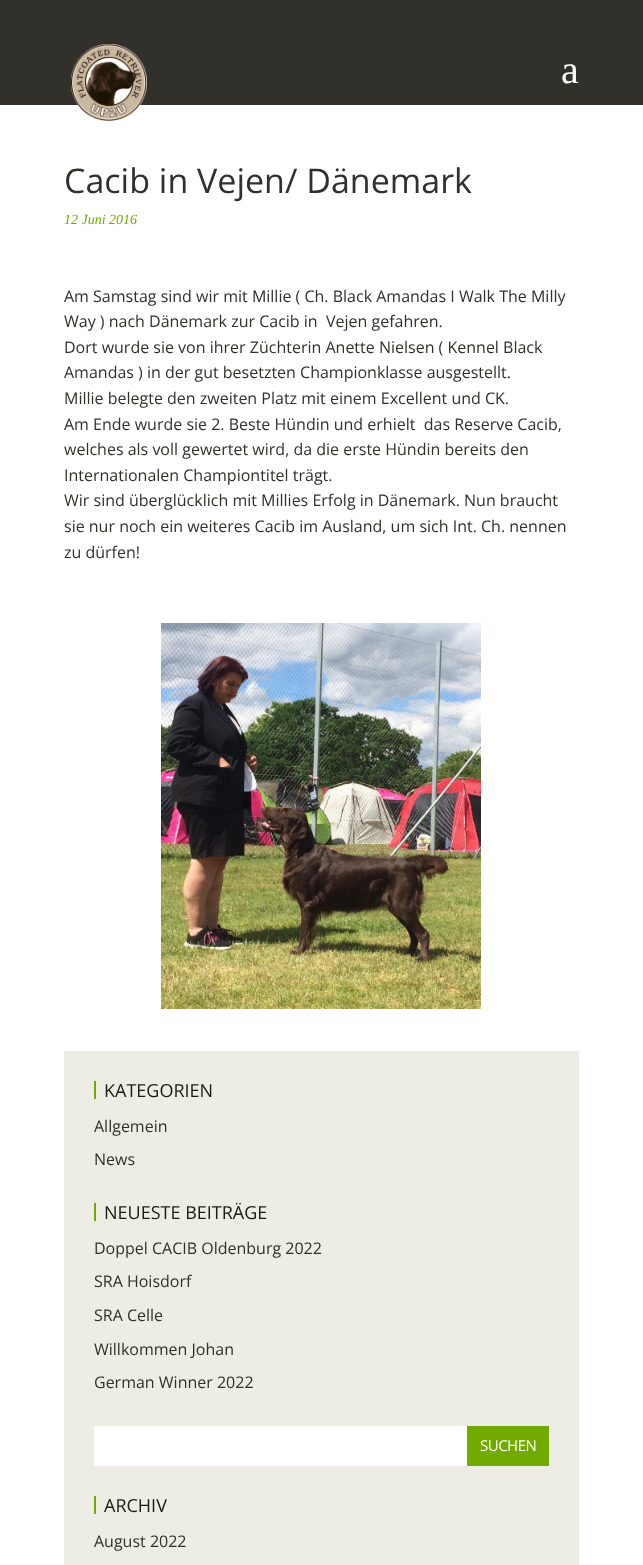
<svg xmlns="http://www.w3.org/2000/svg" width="643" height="1565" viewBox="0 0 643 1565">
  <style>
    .t1 { font: 40px Liberation Serif; fill: #fff; }
    .t2 { font: 34px Open Sans; fill: #32302b; }
    .t3 { font: italic 14px Liberation Serif; fill: #72ab00; }
    .t4 { font: 16px Open Sans; fill: #32302b; }
    .t5 { font: 18px Open Sans; fill: #1b1a17; }
    .t6 { font: 15px Open Sans; letter-spacing: -0.5px; fill: #fff; }
  </style>
  <rect width="100%" height="100%" fill="#32302b"/>
  <rect x="0" y="105" width="643" height="1460" fill="#fff"/>
  <image x="71" y="44" width="76" height="77" href="images/1.png"/>
  <text x="561" y="83" class="t1">a</text>
  <text x="64" y="193" class="t2">Cacib in Vejen/ Dänemark</text>
  <text x="64" y="224" class="t3">12 Juni 2016</text>
  <text x="64" y="302" class="t4">Am Samstag sind wir mit Millie ( Ch. Black Amandas I Walk The Milly</text>
  <text x="64" y="327" class="t4" xml:space="preserve">Way ) nach Dänemark zur Cacib in  Vejen gefahren.</text>
  <text x="64" y="353" class="t4">Dort wurde sie von ihrer Züchterin Anette Nielsen ( Kennel Black</text>
  <text x="64" y="378" class="t4">Amandas ) in der gut besetzten Championklasse ausgestellt.</text>
  <text x="64" y="404" class="t4">Millie belegte den zweiten Platz mit einem Excellent und CK.</text>
  <text x="64" y="430" class="t4" xml:space="preserve">Am Ende wurde sie 2. Beste Hündin und erhielt  das Reserve Cacib,</text>
  <text x="64" y="455" class="t4">welches als voll gewertet wird, da die erste Hündin bereits den</text>
  <text x="64" y="481" class="t4">Internationalen Championtitel trägt.</text>
  <text x="64" y="506" class="t4">Wir sind überglücklich mit Millies Erfolg in Dänemark. Nun braucht</text>
  <text x="64" y="532" class="t4">sie nur noch ein weiteres Cacib im Ausland, um sich Int. Ch. nennen</text>
  <text x="64" y="558" class="t4">zu dürfen!</text>
  <image x="161" y="623" width="320" height="386" href="images/2.png"/>
  <rect x="64" y="1051" width="515" height="514" fill="#edede5"/>
  <rect x="94" y="1081" width="2" height="18" fill="#72ab00"/>
  <text x="104" y="1097" class="t5">KATEGORIEN</text>
  <text x="94" y="1132" class="t4">Allgemein</text>
  <text x="94" y="1165" class="t4">News</text>
  <rect x="94" y="1203" width="2" height="18" fill="#72ab00"/>
  <text x="104" y="1219" class="t5">NEUESTE BEITRÄGE</text>
  <text x="94" y="1254" class="t4">Doppel CACIB Oldenburg 2022</text>
  <text x="94" y="1287" class="t4">SRA Hoisdorf</text>
  <text x="94" y="1321" class="t4">SRA Celle</text>
  <text x="94" y="1355" class="t4">Willkommen Johan</text>
  <text x="94" y="1388" class="t4">German Winner 2022</text>
  <rect x="94" y="1426" width="373" height="40" fill="#fff"/>
  <rect x="467" y="1426" width="82" height="40" fill="#72ab00"/>
  <text x="480" y="1451" class="t6">SUCHEN</text>
  <rect x="94" y="1496" width="2" height="18" fill="#72ab00"/>
  <text x="104" y="1512" class="t5">ARCHIV</text>
  <text x="94" y="1547" class="t4">August 2022</text>
</svg>
